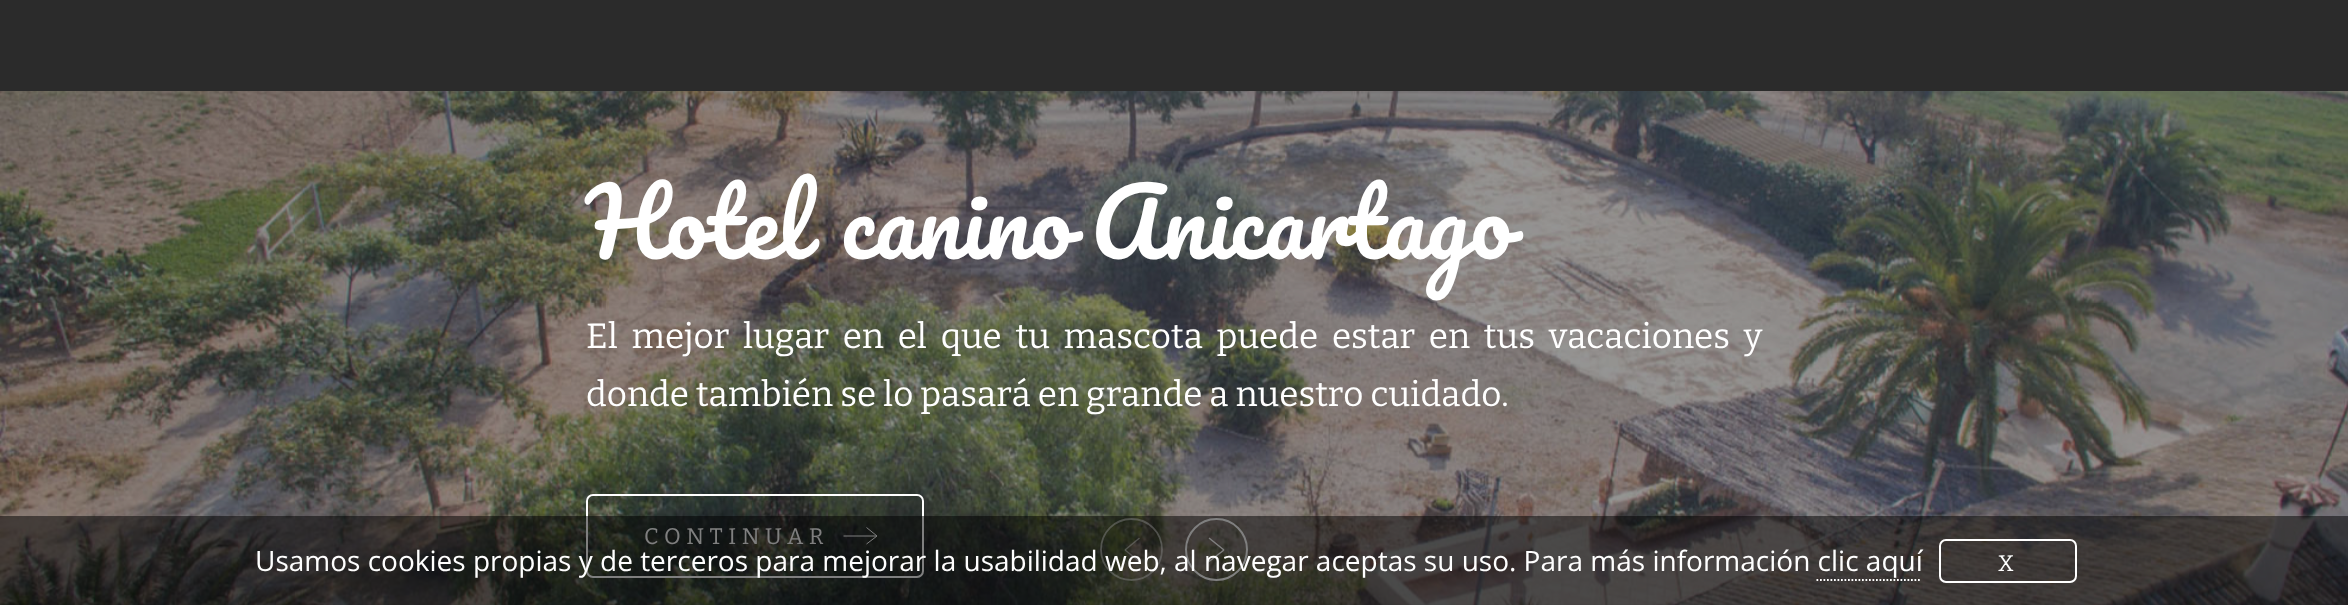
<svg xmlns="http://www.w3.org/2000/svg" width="2348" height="605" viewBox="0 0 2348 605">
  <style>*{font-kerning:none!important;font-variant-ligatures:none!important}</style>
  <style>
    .t1 { font: 91px Pacifico; fill: #fff; }
    .t2 { font: 35px Bitter; fill: #fff; }
    .t3 { font: 22.5px Bitter; letter-spacing: 5.5px; fill: #fff; }
    .t4 { font: 28px Open Sans; fill: #fff; }
  </style>
  <rect width="100%" height="100%" fill="#2b2b2b"/>
  <image x="0" y="91" width="2348" height="514" href="images/1.png"/>
  <text x="586" y="259" word-spacing="-4" class="t1">Hotel</text>
  <text x="841" y="259" word-spacing="-4" class="t1">canino Anicartago</text>
  <text x="586" y="348" word-spacing="6.75" class="t2">El mejor lugar en el que tu mascota puede estar en tus vacaciones y</text>
  <text x="586" y="406" class="t2">donde también se lo pasará en grande a nuestro cuidado.</text>
  <rect x="587" y="495" width="336" height="82" rx="6" fill="none" stroke="#fff" stroke-width="2"/>
  <text x="644" y="544" class="t3">CONTINUAR</text>
  <path d="M843.5 536H877M866.5 527.5L877 536M866.5 544L877 536" fill="none" stroke="#fff"/>
  <path d="M1139.5 538L1125 550" fill="none" stroke="#ffffff80" stroke-width="1.5"/>
  <path d="M1139.5 561.5L1125 550" fill="none" stroke="#ffffff80" stroke-width="1.5"/>
  <path d="M1131.5 519C1114.5 519 1101 532.5 1101 549.5C1101 566.5 1114.5 580 1131.5 580C1148.5 580 1162 566.5 1162 549.5C1162 532.5 1148.5 519 1131.5 519Z" fill="none" stroke="#ffffff80" stroke-width="1.8"/>
  <path d="M1209 538L1224 550M1209 561.5L1224 550" fill="none" stroke="#fff" stroke-width="1.5"/>
  <circle cx="1216.5" cy="549.5" r="30.5" fill="none" stroke="#fff" stroke-width="2"/>
  <rect x="0" y="516" width="2348" height="89" fill="#00000080"/>
  <text x="255" y="571" class="t4">Usamos cookies propias y de terceros para mejorar la usabilidad web, al navegar aceptas su uso. Para más información clic aquí</text>
  <rect x="1940" y="540" width="136" height="42" rx="6" fill="none" stroke="#fff" stroke-width="2"/>
  <text x="1998" y="571" class="t3">X</text>
  <path d="M1816.5 580H1921.5" fill="none" stroke="#fff" stroke-width="1.8" stroke-dasharray="1.75 1.75"/>
</svg>
